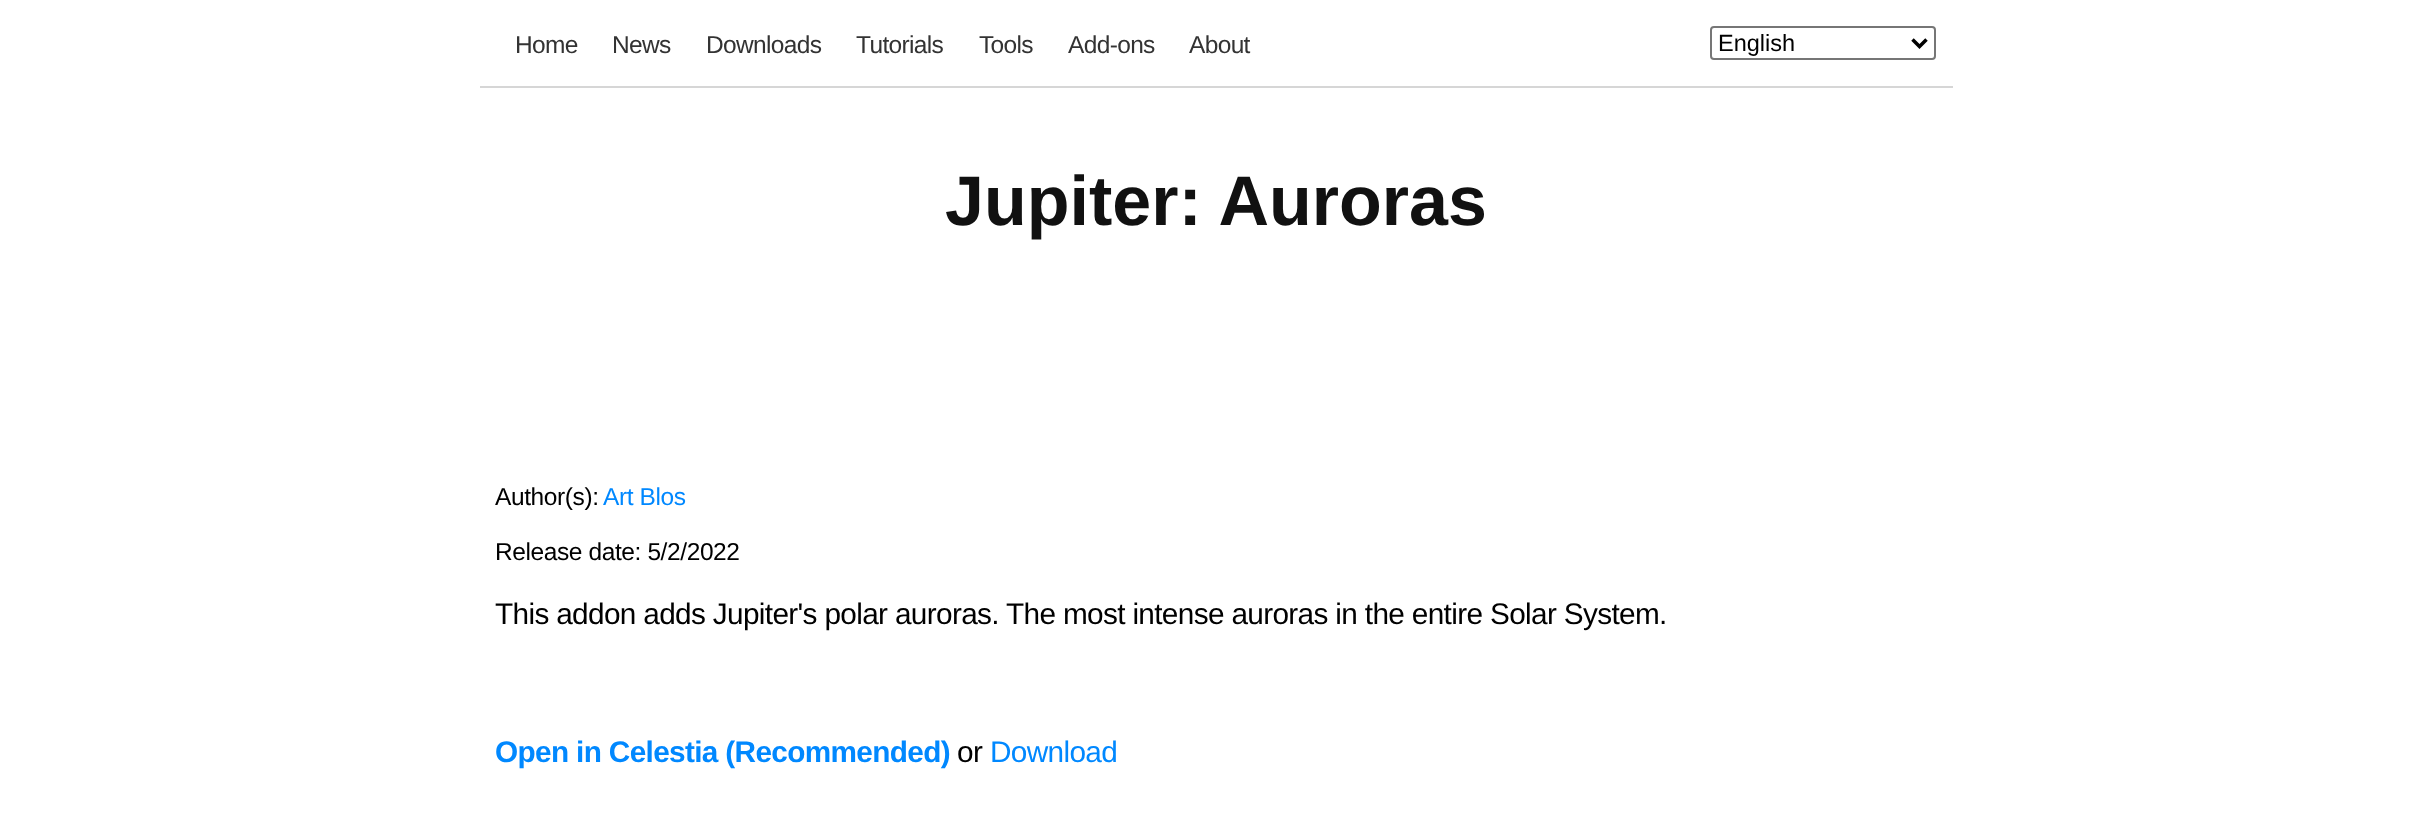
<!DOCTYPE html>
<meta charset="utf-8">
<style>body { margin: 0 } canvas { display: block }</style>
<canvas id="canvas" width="2431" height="814"></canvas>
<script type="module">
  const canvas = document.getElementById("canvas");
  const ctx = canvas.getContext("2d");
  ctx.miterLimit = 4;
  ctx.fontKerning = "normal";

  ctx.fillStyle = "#ffffff";
  ctx.fillRect(0, 0, 2431, 814);
  ctx.letterSpacing = "-0.65px";
  ctx.font = "24.5px Liberation Sans";
  ctx.fillStyle = "#333333";
  ctx.fillText("Home", 515, 53);
  ctx.fillText("News", 612, 53);
  ctx.fillText("Downloads", 706, 53);
  ctx.fillText("Tutorials", 856, 53);
  ctx.fillText("Tools", 979, 53);
  ctx.fillText("Add-ons", 1068, 53);
  ctx.fillText("About", 1189, 53);
  ctx.beginPath();
  ctx.roundRect(1711, 27, 224, 32, 3);
  ctx.strokeStyle = "#767676";
  ctx.lineWidth = 2;
  ctx.stroke();
  ctx.beginPath();
  ctx.moveTo(1912.5, 39.5);
  ctx.lineTo(1919.5, 46.5);
  ctx.lineTo(1926.5, 39.5);
  ctx.strokeStyle = "#000000";
  ctx.lineWidth = 3.5;
  ctx.stroke();
  ctx.letterSpacing = "0px";
  ctx.font = "23.5px Liberation Sans";
  ctx.fillStyle = "#000000";
  ctx.fillText("English", 1718, 51);
  ctx.fillStyle = "#d6d6d6";
  ctx.fillRect(480, 86, 1473, 2);
  ctx.font = "bold 70px Liberation Sans";
  ctx.fillStyle = "#111111";
  ctx.fillText("Jupiter: Auroras", 945, 225);
  ctx.letterSpacing = "-0.4px";
  ctx.font = "24.5px Liberation Sans";
  ctx.fillStyle = "#000000";
  ctx.fillText("Author(s):", 495, 505);
  ctx.fillStyle = "#0088ff";
  ctx.fillText("Art Blos", 603, 505);
  ctx.fillStyle = "#000000";
  ctx.fillText("Release date: 5/2/2022", 495, 560);
  ctx.letterSpacing = "-0.65px";
  ctx.font = "29.75px Liberation Sans";
  ctx.fillText("This addon adds Jupiter's polar auroras. The most intense auroras in the entire Solar System.", 495, 624);
  ctx.font = "bold 29.75px Liberation Sans";
  ctx.fillStyle = "#0088ff";
  ctx.fillText("Open in Celestia (Recommended)", 495, 762);
  ctx.font = "29.75px Liberation Sans";
  ctx.fillStyle = "#000000";
  ctx.fillText("or", 957, 762);
  ctx.fillStyle = "#0088ff";
  ctx.fillText("Download", 990, 762);
</script>
